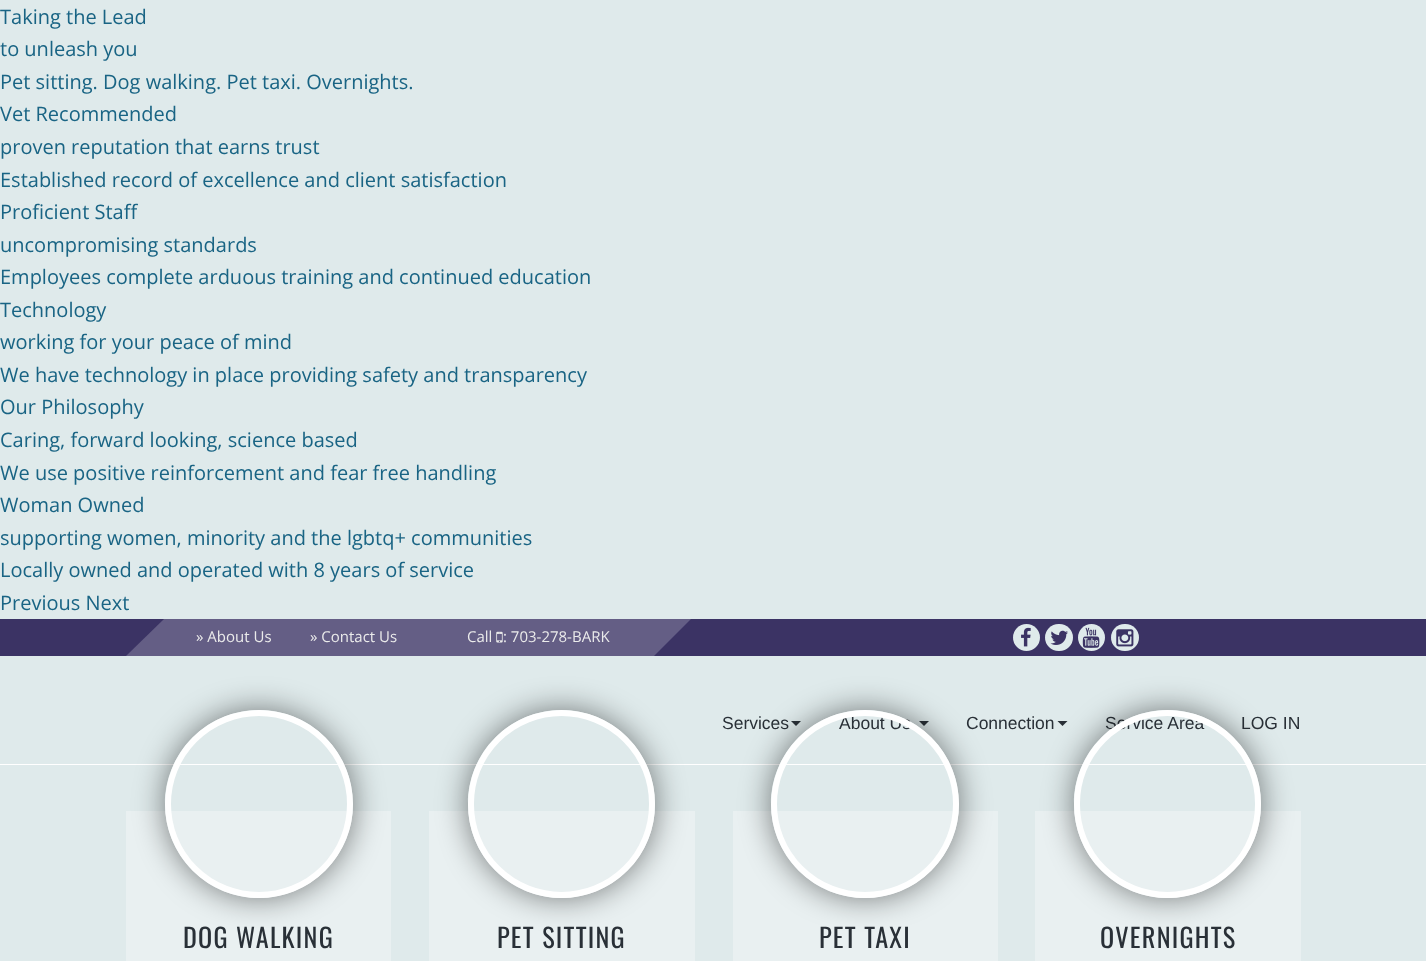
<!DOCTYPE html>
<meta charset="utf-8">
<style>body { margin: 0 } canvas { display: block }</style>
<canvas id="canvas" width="1426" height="961"></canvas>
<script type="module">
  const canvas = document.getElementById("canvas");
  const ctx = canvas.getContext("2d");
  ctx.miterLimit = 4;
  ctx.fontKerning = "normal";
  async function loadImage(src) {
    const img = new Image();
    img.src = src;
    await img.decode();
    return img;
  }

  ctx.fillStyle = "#dfeaeb";
  ctx.fillRect(0, 0, 1426, 961);
  ctx.font = "20px Open Sans";
  ctx.fillStyle = "#196484";
  ctx.fillText("Taking the Lead", 0, 24);
  ctx.fillText("to unleash you", 0, 56);
  ctx.fillText("Pet sitting. Dog walking. Pet taxi. Overnights.", 0, 89);
  ctx.fillText("Vet Recommended", 0, 121);
  ctx.fillText("proven reputation that earns trust", 0, 154);
  ctx.fillText("Established record of excellence and client satisfaction", 0, 187);
  ctx.fillText("Proficient Staff", 0, 219);
  ctx.fillText("uncompromising standards", 0, 252);
  ctx.fillText("Employees complete arduous training and continued education", 0, 284);
  ctx.fillText("Technology", 0, 317);
  ctx.fillText("working for your peace of mind", 0, 349);
  ctx.fillText("We have technology in place providing safety and transparency", 0, 382);
  ctx.fillText("Our Philosophy", 0, 414);
  ctx.fillText("Caring, forward looking, science based", 0, 447);
  ctx.fillText("We use positive reinforcement and fear free handling", 0, 480);
  ctx.fillText("Woman Owned", 0, 512);
  ctx.fillText("supporting women, minority and the lgbtq+ communities", 0, 545);
  ctx.fillText("Locally owned and operated with 8 years of service", 0, 577);
  ctx.fillText("Previous Next", 0, 610);
  ctx.fillStyle = "#3b3364";
  ctx.fillRect(0, 619, 1426, 37);
  ctx.fillStyle = "#645e85";
  ctx.beginPath();
  ctx.moveTo(164, 619);
  ctx.lineTo(164, 656);
  ctx.lineTo(126, 656);
  ctx.closePath();
  ctx.fill();
  ctx.fillRect(164, 619, 490, 37);
  ctx.font = "15px Open Sans";
  ctx.fillStyle = "#ebebeb";
  ctx.fillText("» About Us", 196, 642);
  ctx.fillText("» Contact Us", 310, 642);
  ctx.fillText("Call", 467, 642);
  ctx.drawImage(await loadImage("img1.png"), 496, 631, 7, 12);
  ctx.fillText(": 703-278-BARK", 503, 642);
  ctx.fillStyle = "#645e85";
  ctx.beginPath();
  ctx.moveTo(654, 619);
  ctx.lineTo(691, 619);
  ctx.lineTo(654, 656);
  ctx.closePath();
  ctx.fill();
  ctx.fillStyle = "#dfeaeb";
  ctx.beginPath();
  ctx.arc(1026.5, 637.5, 13.5, 0, Math.PI * 2);
  ctx.fill();
  ctx.drawImage(await loadImage("img2.png"), 1021, 627, 10, 20);
  ctx.beginPath();
  ctx.roundRect(1045, 624, 28, 27, 13.5);
  ctx.fill();
  ctx.drawImage(await loadImage("img3.png"), 1050, 630, 18, 15);
  ctx.beginPath();
  ctx.arc(1091.5, 637.5, 13.5, 0, Math.PI * 2);
  ctx.fill();
  ctx.drawImage(await loadImage("img4.png"), 1082, 627, 18, 21);
  ctx.beginPath();
  ctx.roundRect(1111, 624, 28, 27, 13.5);
  ctx.fill();
  ctx.drawImage(await loadImage("img5.png"), 1116, 629, 18, 18);
  ctx.font = "17.5px Liberation Sans";
  ctx.fillStyle = "#293037";
  ctx.fillText("Services", 722, 729);
  ctx.beginPath();
  ctx.moveTo(791, 721);
  ctx.lineTo(801, 721);
  ctx.lineTo(796, 726);
  ctx.closePath();
  ctx.fill();
  ctx.fillText("About Us", 839, 729);
  ctx.beginPath();
  ctx.moveTo(919, 721);
  ctx.lineTo(929, 721);
  ctx.lineTo(924, 726);
  ctx.closePath();
  ctx.fill();
  ctx.fillText("Connection", 966, 729);
  ctx.beginPath();
  ctx.moveTo(1057.5, 721);
  ctx.lineTo(1067.5, 721);
  ctx.lineTo(1062.5, 726);
  ctx.closePath();
  ctx.fill();
  ctx.fillText("Service Area", 1105, 729);
  ctx.fillText("LOG IN", 1241, 729);
  ctx.fillStyle = "#ffffff";
  ctx.fillRect(0, 764, 1426, 1);
  ctx.fillStyle = "#e9f0f1";
  ctx.fillRect(126, 811, 265, 150);
  ctx.save();
  ctx.beginPath();
  ctx.moveTo(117, 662);
  ctx.lineTo(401, 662);
  ctx.lineTo(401, 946);
  ctx.lineTo(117, 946);
  ctx.closePath();
  ctx.moveTo(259, 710);
  ctx.bezierCurveTo(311, 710, 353, 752, 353, 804);
  ctx.bezierCurveTo(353, 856, 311, 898, 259, 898);
  ctx.bezierCurveTo(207, 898, 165, 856, 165, 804);
  ctx.bezierCurveTo(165, 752, 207, 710, 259, 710);
  ctx.closePath();
  ctx.clip("evenodd");
  ctx.fillStyle = "rgba(0, 0, 0, 0.5)";
  ctx.filter = "blur(15.5px)";
  ctx.beginPath();
  ctx.roundRect(165, 710, 188, 188, 94);
  ctx.fill();
  ctx.filter = "none";
  ctx.restore();
  ctx.beginPath();
  ctx.arc(259, 804, 91, 0, Math.PI * 2);
  ctx.strokeStyle = "#ffffff";
  ctx.lineWidth = 6;
  ctx.stroke();
  ctx.letterSpacing = "1.25px";
  ctx.font = "26.25px Oswald";
  ctx.fillStyle = "#293037";
  ctx.fillText("DOG WALKING", 183, 948);
  ctx.fillStyle = "#e9f0f1";
  ctx.fillRect(429, 811, 266, 150);
  ctx.save();
  ctx.beginPath();
  ctx.moveTo(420, 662);
  ctx.lineTo(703, 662);
  ctx.lineTo(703, 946);
  ctx.lineTo(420, 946);
  ctx.closePath();
  ctx.moveTo(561.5, 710);
  ctx.bezierCurveTo(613, 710, 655, 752, 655, 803.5);
  ctx.lineTo(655, 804.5);
  ctx.bezierCurveTo(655, 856, 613, 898, 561.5, 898);
  ctx.bezierCurveTo(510, 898, 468, 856, 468, 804.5);
  ctx.lineTo(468, 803.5);
  ctx.bezierCurveTo(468, 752, 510, 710, 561.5, 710);
  ctx.closePath();
  ctx.clip("evenodd");
  ctx.fillStyle = "rgba(0, 0, 0, 0.5)";
  ctx.filter = "blur(15.5px)";
  ctx.beginPath();
  ctx.roundRect(468, 710, 187, 188, 93.5);
  ctx.fill();
  ctx.filter = "none";
  ctx.restore();
  ctx.beginPath();
  ctx.roundRect(471, 713, 181, 182, 90.5);
  ctx.stroke();
  ctx.fillStyle = "#293037";
  ctx.fillText("PET SITTING", 497, 948);
  ctx.fillStyle = "#e9f0f1";
  ctx.fillRect(733, 811, 265, 150);
  ctx.save();
  ctx.beginPath();
  ctx.moveTo(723, 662);
  ctx.lineTo(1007, 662);
  ctx.lineTo(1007, 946);
  ctx.lineTo(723, 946);
  ctx.closePath();
  ctx.moveTo(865, 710);
  ctx.bezierCurveTo(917, 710, 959, 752, 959, 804);
  ctx.bezierCurveTo(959, 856, 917, 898, 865, 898);
  ctx.bezierCurveTo(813, 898, 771, 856, 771, 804);
  ctx.bezierCurveTo(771, 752, 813, 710, 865, 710);
  ctx.closePath();
  ctx.clip("evenodd");
  ctx.fillStyle = "rgba(0, 0, 0, 0.5)";
  ctx.filter = "blur(15.5px)";
  ctx.beginPath();
  ctx.roundRect(771, 710, 188, 188, 94);
  ctx.fill();
  ctx.filter = "none";
  ctx.restore();
  ctx.beginPath();
  ctx.arc(865, 804, 91, 0, Math.PI * 2);
  ctx.stroke();
  ctx.fillStyle = "#293037";
  ctx.fillText("PET TAXI", 819, 948);
  ctx.fillStyle = "#e9f0f1";
  ctx.fillRect(1035, 811, 266, 150);
  ctx.save();
  ctx.beginPath();
  ctx.moveTo(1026, 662);
  ctx.lineTo(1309, 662);
  ctx.lineTo(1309, 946);
  ctx.lineTo(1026, 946);
  ctx.closePath();
  ctx.moveTo(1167.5, 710);
  ctx.bezierCurveTo(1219, 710, 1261, 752, 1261, 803.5);
  ctx.lineTo(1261, 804.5);
  ctx.bezierCurveTo(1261, 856, 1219, 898, 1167.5, 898);
  ctx.bezierCurveTo(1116, 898, 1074, 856, 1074, 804.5);
  ctx.lineTo(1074, 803.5);
  ctx.bezierCurveTo(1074, 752, 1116, 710, 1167.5, 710);
  ctx.closePath();
  ctx.clip("evenodd");
  ctx.fillStyle = "rgba(0, 0, 0, 0.5)";
  ctx.filter = "blur(15.5px)";
  ctx.beginPath();
  ctx.roundRect(1074, 710, 187, 188, 93.5);
  ctx.fill();
  ctx.filter = "none";
  ctx.restore();
  ctx.beginPath();
  ctx.roundRect(1077, 713, 181, 182, 90.5);
  ctx.stroke();
  ctx.fillStyle = "#293037";
  ctx.fillText("OVERNIGHTS", 1100, 948);
</script>
